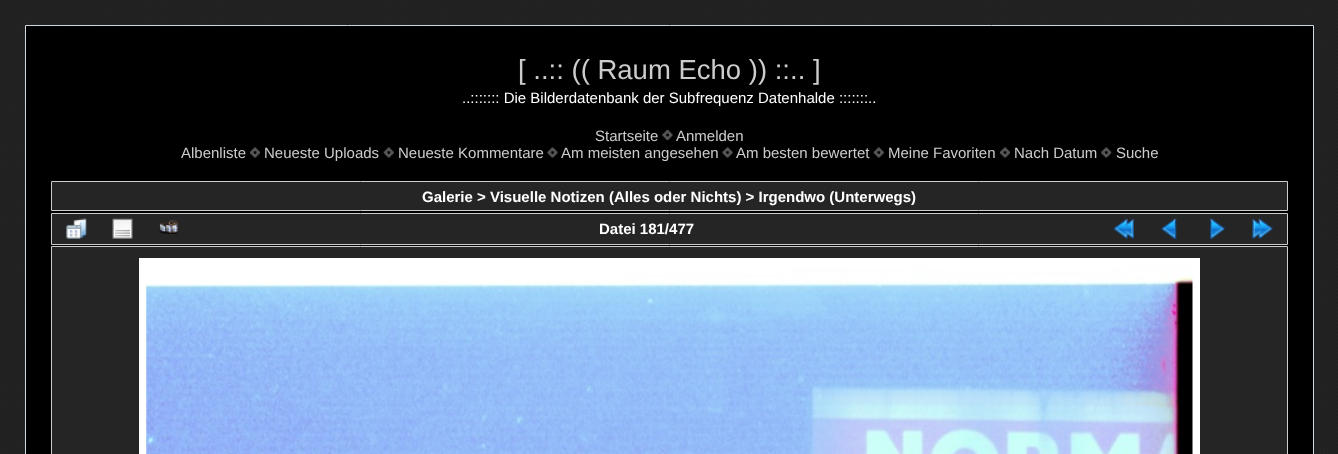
<!DOCTYPE html>
<meta charset="utf-8">
<style>body { margin: 0 } canvas { display: block }</style>
<canvas id="canvas" width="1338" height="454"></canvas>
<script type="module">
  const canvas = document.getElementById("canvas");
  const ctx = canvas.getContext("2d");
  ctx.miterLimit = 4;
  ctx.fontKerning = "normal";
  async function loadImage(src) {
    const img = new Image();
    img.src = src;
    await img.decode();
    return img;
  }

  ctx.fillStyle = "#ffffff";
  ctx.fillRect(0, 0, 1338, 454);
  ctx.drawImage(await loadImage("img1.png"), 0, 0, 1338, 454);
  ctx.fillStyle = "#000000";
  ctx.beginPath();
  ctx.rect(25.5, 25.5, 1288, 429);
  ctx.fill();
  ctx.strokeStyle = "#ccd7e0";
  ctx.stroke();
  ctx.font = "27.5px Liberation Sans";
  ctx.fillStyle = "#cccccc";
  ctx.fillText("[ ..:: (( Raum Echo )) ::.. ]", 518, 79);
  ctx.font = "15px Liberation Sans";
  ctx.fillStyle = "#ffffff";
  ctx.fillText("..::::::: Die Bilderdatenbank der Subfrequenz Datenhalde :::::::..", 462, 103);
  ctx.fillStyle = "#cccccc";
  ctx.fillText("Startseite", 595, 141);
  ctx.drawImage(await loadImage("img2.png"), 662, 130, 11, 10);
  ctx.fillText("Anmelden", 676, 141);
  ctx.fillText("Albenliste", 181, 158);
  ctx.drawImage(await loadImage("img3.png"), 250, 147, 10, 11);
  ctx.fillText("Neueste Uploads", 264, 158);
  ctx.drawImage(await loadImage("img4.png"), 383, 147, 11, 11);
  ctx.fillText("Neueste Kommentare", 398, 158);
  ctx.drawImage(await loadImage("img5.png"), 547, 147, 11, 11);
  ctx.fillText("Am meisten angesehen", 561, 158);
  ctx.drawImage(await loadImage("img5.png"), 722, 147, 11, 11);
  ctx.fillText("Am besten bewertet", 736, 158);
  ctx.drawImage(await loadImage("img4.png"), 873, 147, 11, 11);
  ctx.fillText("Meine Favoriten", 888, 158);
  ctx.drawImage(await loadImage("img6.png"), 1000, 147, 10, 11);
  ctx.fillText("Nach Datum", 1014, 158);
  ctx.drawImage(await loadImage("img7.png"), 1101, 147, 11, 11);
  ctx.fillText("Suche", 1116, 158);
  ctx.fillStyle = "#252525";
  ctx.beginPath();
  ctx.rect(51.5, 181.5, 1236, 29);
  ctx.fill();
  ctx.strokeStyle = "#cccccc";
  ctx.stroke();
  ctx.font = "bold 15px Liberation Sans";
  ctx.fillStyle = "#ffffff";
  ctx.fillText("Galerie > Visuelle Notizen (Alles oder Nichts) > Irgendwo (Unterwegs)", 422, 202);
  ctx.fillStyle = "#252525";
  ctx.beginPath();
  ctx.rect(51.5, 213.5, 1236, 31);
  ctx.fill();
  ctx.stroke();
  ctx.drawImage(await loadImage("img8.png"), 66, 218, 21, 21);
  ctx.drawImage(await loadImage("img9.png"), 112, 218, 21, 21);
  ctx.drawImage(await loadImage("img10.png"), 159, 220, 19, 14);
  ctx.fillStyle = "#ffffff";
  ctx.fillText("Datei 181/477", 599, 234);
  ctx.drawImage(await loadImage("img11.png"), 1113, 218, 21, 21);
  ctx.drawImage(await loadImage("img12.png"), 1161, 218, 16, 21);
  ctx.drawImage(await loadImage("img13.png"), 1209, 218, 17, 21);
  ctx.drawImage(await loadImage("img14.png"), 1252, 218, 21, 21);
  ctx.fillStyle = "#252525";
  ctx.beginPath();
  ctx.rect(51.5, 246.5, 1236, 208);
  ctx.fill();
  ctx.stroke();
  ctx.strokeStyle = "#ffffff";
  ctx.lineWidth = 8;
  ctx.strokeRect(143, 262, 1053, 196);
  ctx.drawImage(await loadImage("img15.png"), 146, 265, 1047, 189);
</script>
